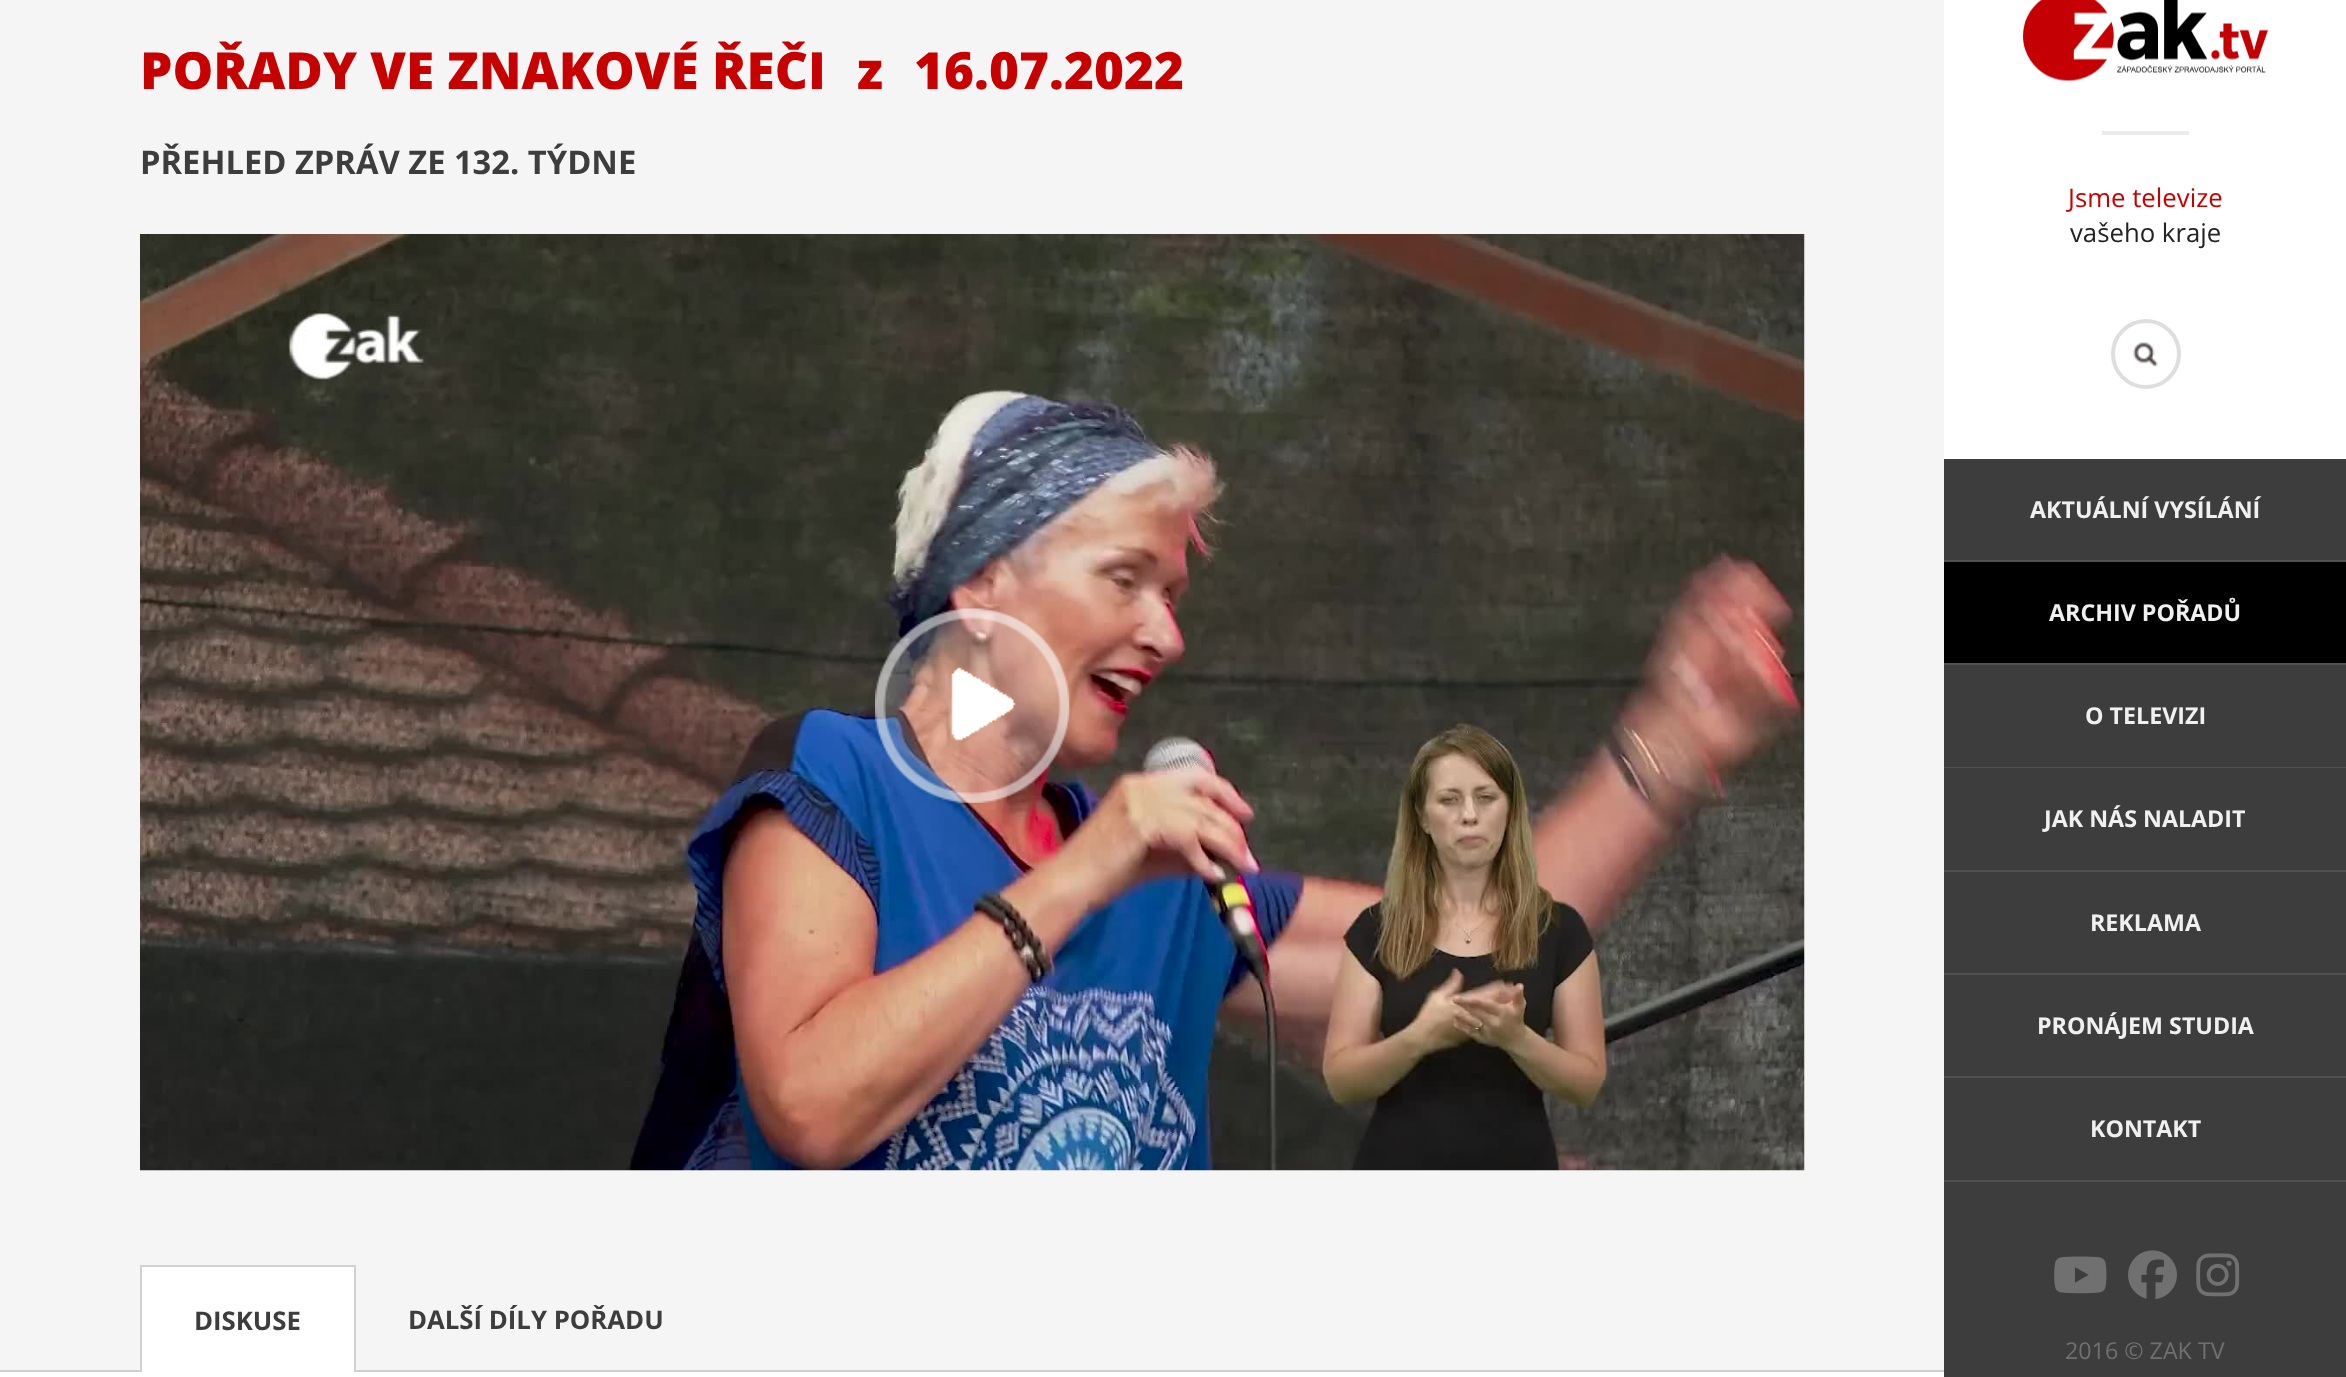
<!DOCTYPE html>
<meta charset="utf-8">
<style>body { margin: 0 } canvas { display: block }</style>
<canvas id="canvas" width="2346" height="1377"></canvas>
<script type="module">
  const canvas = document.getElementById("canvas");
  const ctx = canvas.getContext("2d");
  ctx.miterLimit = 4;
  ctx.fontKerning = "normal";
  async function loadImage(src) {
    const img = new Image();
    img.src = src;
    await img.decode();
    return img;
  }

  ctx.fillStyle = "#3d3d3d";
  ctx.fillRect(0, 0, 2346, 1377);
  ctx.fillStyle = "#000000";
  ctx.fillRect(1944, 562, 402, 101);
  ctx.beginPath();
  ctx.moveTo(1949.5, 597);
  ctx.lineTo(1949.5, 625);
  ctx.lineTo(1928.5, 611);
  ctx.closePath();
  ctx.fill();
  ctx.fillStyle = "#f5f5f5";
  ctx.fillRect(0, 0, 1944, 1370);
  ctx.font = "800 51.3px Open Sans";
  ctx.fillStyle = "#c70000";
  ctx.fillText("POŘADY VE ZNAKOVÉ ŘEČI", 140, 89);
  ctx.fillText("z", 857, 89);
  ctx.fillText("16.07.2022", 914, 89);
  ctx.font = "bold 32.7px Open Sans";
  ctx.fillStyle = "#3d3d3d";
  ctx.fillText("PŘEHLED ZPRÁV ZE 132. TÝDNE", 140, 174);
  ctx.drawImage(await loadImage("img1.png"), 140, 234, 1665, 937);
  ctx.drawImage(await loadImage("img2.png"), 875, 608, 195, 195);
  ctx.fillStyle = "#d1d1d1";
  ctx.fillRect(0, 1370, 1944, 2);
  ctx.fillStyle = "#ffffff";
  ctx.fillRect(142, 1267, 212, 105);
  ctx.fillStyle = "#d1d1d1";
  ctx.fillRect(140, 1265, 215, 2);
  ctx.fillRect(354, 1265, 2, 107);
  ctx.fillRect(140, 1265, 2, 107);
  ctx.font = "bold 25.75px Open Sans";
  ctx.fillStyle = "#3d3d3d";
  ctx.fillText("DISKUSE", 194, 1330);
  ctx.fillText("DALŠÍ DÍLY POŘADU", 408, 1329);
  ctx.fillStyle = "#ffffff";
  ctx.fillRect(0, 1372, 1944, 5);
  ctx.fillRect(1944, 0, 402, 459);
  ctx.drawImage(await loadImage("img3.png"), 2023, 0, 245, 81);
  ctx.fillStyle = "#ebebeb";
  ctx.fillRect(2102, 131, 87, 4);
  ctx.font = "25.75px Open Sans";
  ctx.fillStyle = "#c70000";
  ctx.fillText("Jsme televize", 2068, 207);
  ctx.fillStyle = "#232323";
  ctx.fillText("vašeho kraje", 2070, 242);
  ctx.drawImage(await loadImage("img4.png"), 2133, 342, 25, 25);
  ctx.beginPath();
  ctx.arc(2146, 354, 33, 0, Math.PI * 2);
  ctx.strokeStyle = "#dedede";
  ctx.lineWidth = 4;
  ctx.stroke();
  ctx.fillStyle = "#515151";
  ctx.fillRect(1944, 560, 402, 2);
  ctx.font = "bold 23.25px Open Sans";
  ctx.fillStyle = "#f0f0f0";
  ctx.fillText("AKTUÁLNÍ VYSÍLÁNÍ", 2030, 518);
  ctx.fillStyle = "#515151";
  ctx.fillRect(1944, 663, 402, 2);
  ctx.fillStyle = "#f0f0f0";
  ctx.fillText("ARCHIV POŘADŮ", 2049, 621);
  ctx.fillStyle = "#515151";
  ctx.fillRect(1944, 767, 402, 1);
  ctx.fillStyle = "#f0f0f0";
  ctx.fillText("O TELEVIZI", 2085, 724);
  ctx.fillStyle = "#515151";
  ctx.fillRect(1944, 870, 402, 2);
  ctx.fillStyle = "#f0f0f0";
  ctx.fillText("JAK NÁS NALADIT", 2044, 827);
  ctx.fillStyle = "#515151";
  ctx.fillRect(1944, 973, 402, 2);
  ctx.fillStyle = "#f0f0f0";
  ctx.fillText("REKLAMA", 2090, 931);
  ctx.fillStyle = "#515151";
  ctx.fillRect(1944, 1076, 402, 2);
  ctx.fillStyle = "#f0f0f0";
  ctx.fillText("PRONÁJEM STUDIA", 2037, 1034);
  ctx.fillStyle = "#515151";
  ctx.fillRect(1944, 1180, 402, 2);
  ctx.fillStyle = "#f0f0f0";
  ctx.fillText("KONTAKT", 2090, 1137);
  ctx.drawImage(await loadImage("img5.png"), 2054, 1256, 53, 38);
  ctx.drawImage(await loadImage("img6.png"), 2128, 1250, 49, 49);
  ctx.drawImage(await loadImage("img7.png"), 2196, 1253, 44, 44);
  ctx.font = "23.25px Open Sans";
  ctx.fillStyle = "#707070";
  ctx.fillText("2016 © ZAK TV", 2065, 1359);
</script>
